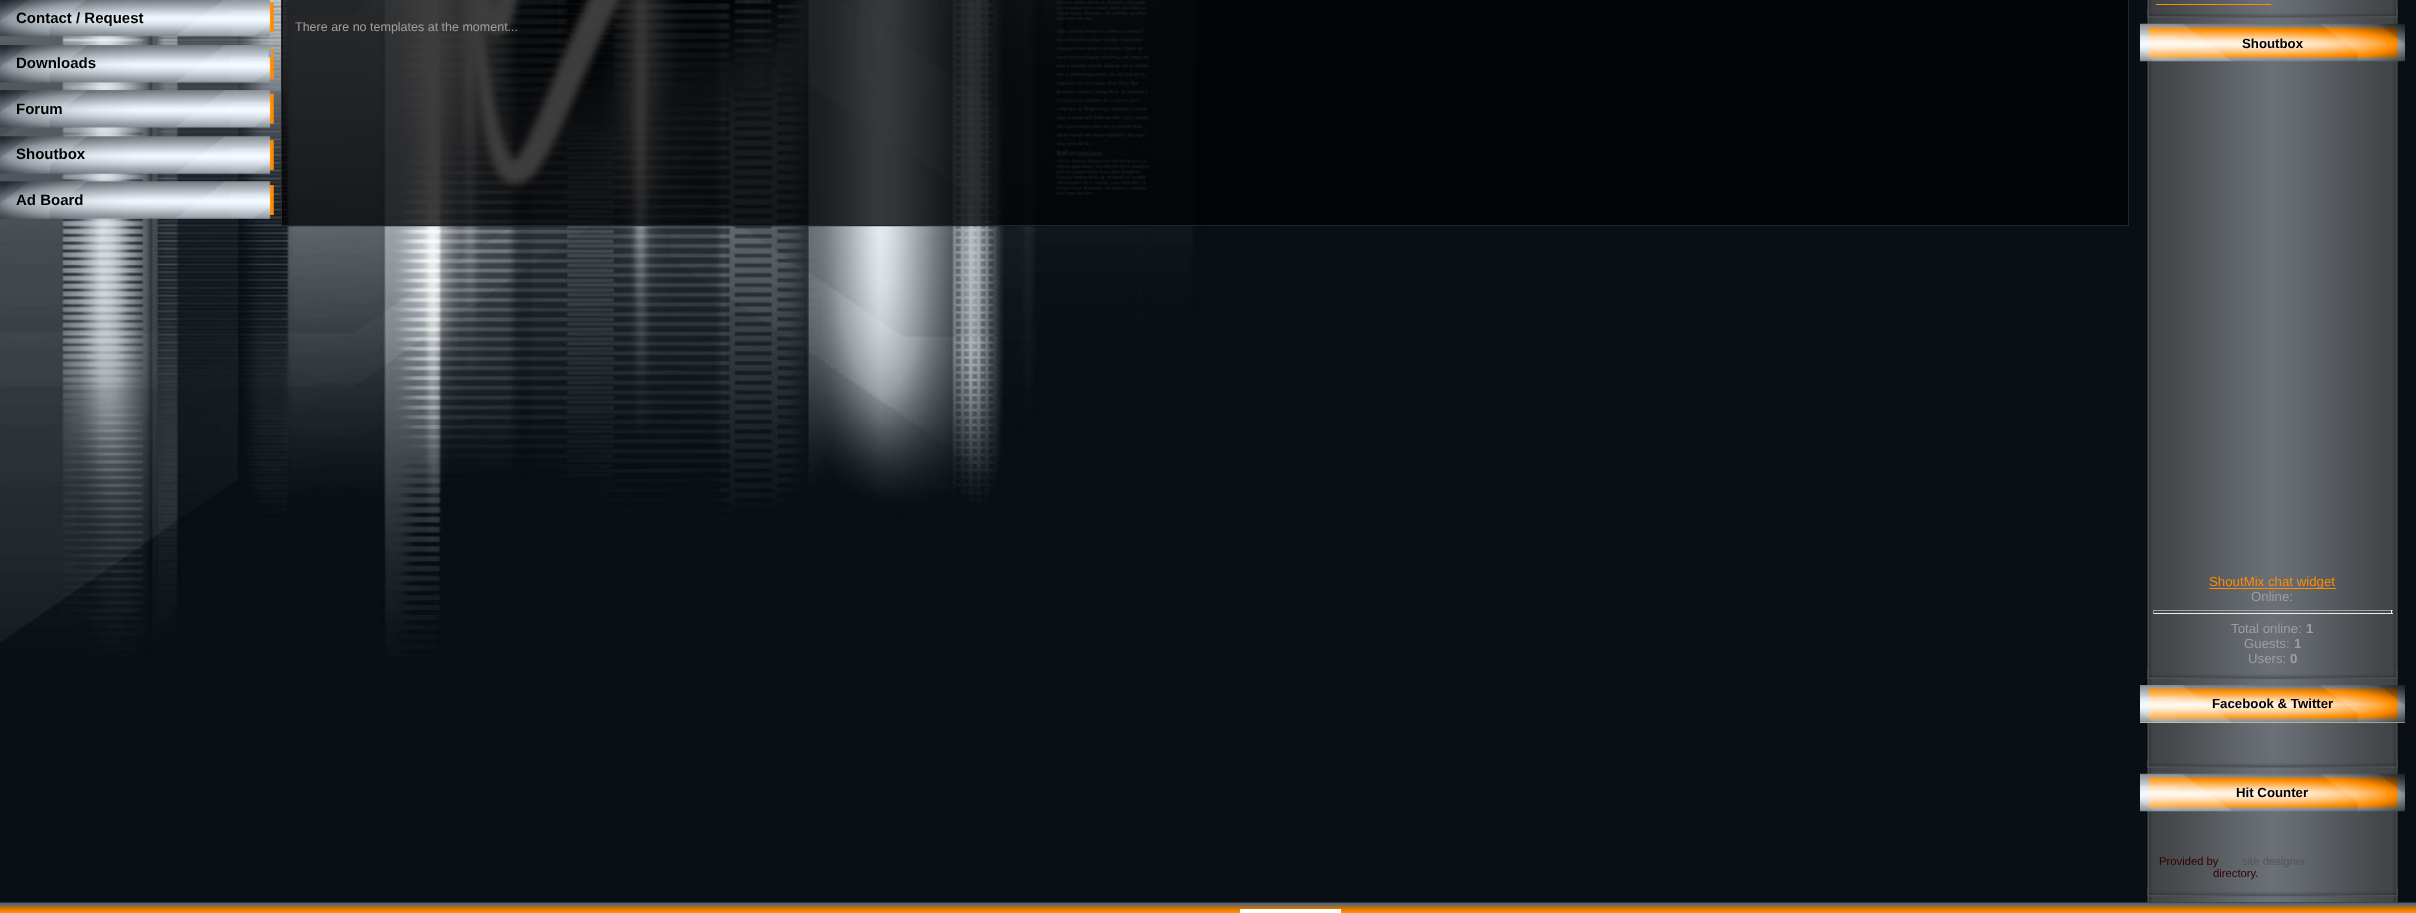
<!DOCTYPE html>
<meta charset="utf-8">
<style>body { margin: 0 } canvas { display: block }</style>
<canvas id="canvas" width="2416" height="913"></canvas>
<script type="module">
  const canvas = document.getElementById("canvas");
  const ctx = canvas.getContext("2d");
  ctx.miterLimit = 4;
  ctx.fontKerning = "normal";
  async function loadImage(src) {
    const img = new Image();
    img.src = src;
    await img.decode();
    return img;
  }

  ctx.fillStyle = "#090f15";
  ctx.fillRect(0, 0, 2416, 913);
  ctx.drawImage(await loadImage("img1.png"), 0, 0, 1250, 656);
  ctx.drawImage(await loadImage("img2.png"), 0, 0, 274, 37);
  ctx.font = "bold 15px Liberation Sans";
  ctx.fillStyle = "#000000";
  ctx.fillText("Contact / Request", 16, 23);
  ctx.drawImage(await loadImage("img3.png"), 0, 45, 274, 38);
  ctx.drawImage(await loadImage("img4.png"), 268, 48, 6, 10);
  ctx.fillText("Downloads", 16, 68);
  ctx.drawImage(await loadImage("img5.png"), 0, 90, 274, 38);
  ctx.fillText("Forum", 16, 114);
  ctx.drawImage(await loadImage("img6.png"), 0, 136, 274, 38);
  ctx.fillText("Shoutbox", 16, 159);
  ctx.drawImage(await loadImage("img7.png"), 0, 181, 274, 38);
  ctx.fillText("Ad Board", 16, 205);
  ctx.fillStyle = "#020405";
  ctx.fillRect(282, 0, 1846, 225);
  ctx.drawImage(await loadImage("img8.png"), 282, 0, 994, 227);
  ctx.strokeStyle = "#21272d";
  ctx.strokeRect(281.5, -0.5, 1847, 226);
  ctx.font = "12.5px Liberation Sans";
  ctx.fillStyle = "#9f9f9f";
  ctx.fillText("There are no templates at the moment...", 295, 31);
  ctx.drawImage(await loadImage("img9.png"), 2147, 0, 251, 903);
  ctx.drawImage(await loadImage("img10.png"), 2147, 8, 251, 10);
  ctx.fillStyle = "#ff8c00";
  ctx.fillRect(2156, 4, 115, 1);
  ctx.drawImage(await loadImage("img11.png"), 2140, 23, 265, 39);
  ctx.font = "bold 13.25px Liberation Sans";
  ctx.fillStyle = "#000000";
  ctx.fillText("Shoutbox", 2242, 48);
  ctx.drawImage(await loadImage("img12.png"), 2147, 670, 251, 9);
  ctx.fillStyle = "#ff8c00";
  ctx.fillRect(2209, 588, 127, 1);
  ctx.font = "13.25px Liberation Sans";
  ctx.fillText("ShoutMix chat widget", 2209, 586);
  ctx.fillStyle = "#9f9f9f";
  ctx.fillText("Online:", 2251, 601);
  ctx.fillRect(2153, 610, 240, 1);
  ctx.fillStyle = "#eeeeee";
  ctx.fillRect(2391, 610, 1, 4);
  ctx.fillRect(2153, 613, 240, 1);
  ctx.fillStyle = "#9f9f9f";
  ctx.fillRect(2153, 610, 1, 4);
  ctx.fillText("Total online:", 2231, 633);
  ctx.font = "bold 13.25px Liberation Sans";
  ctx.fillText("1", 2306, 633);
  ctx.font = "13.25px Liberation Sans";
  ctx.fillText("Guests:", 2244, 648);
  ctx.font = "bold 13.25px Liberation Sans";
  ctx.fillText("1", 2294, 648);
  ctx.font = "13.25px Liberation Sans";
  ctx.fillText("Users:", 2248, 663);
  ctx.font = "bold 13.25px Liberation Sans";
  ctx.fillText("0", 2290, 663);
  ctx.fillStyle = "#ffdcb0";
  ctx.fillRect(2140, 722, 265, 1);
  ctx.drawImage(await loadImage("img13.png"), 2140, 685, 265, 38);
  ctx.fillStyle = "#000000";
  ctx.fillText("Facebook & Twitter", 2212, 708);
  ctx.drawImage(await loadImage("img10.png"), 2147, 758, 251, 10);
  ctx.drawImage(await loadImage("img14.png"), 2140, 773, 265, 39);
  ctx.fillText("Hit Counter", 2236, 797);
  ctx.drawImage(await loadImage("img15.png"), 2147, 887, 251, 10);
  ctx.font = "11.25px Liberation Sans";
  ctx.fillStyle = "#330000";
  ctx.fillText("Provided by", 2159, 865);
  ctx.fillStyle = "#555555";
  ctx.fillText("site designer", 2242, 865);
  ctx.fillStyle = "#330000";
  ctx.fillText("directory.", 2213, 877);
  ctx.drawImage(await loadImage("img16.png"), 0, 902, 2416, 11);
  ctx.fillStyle = "#ffffff";
  ctx.fillRect(1240, 909, 101, 4);
</script>
